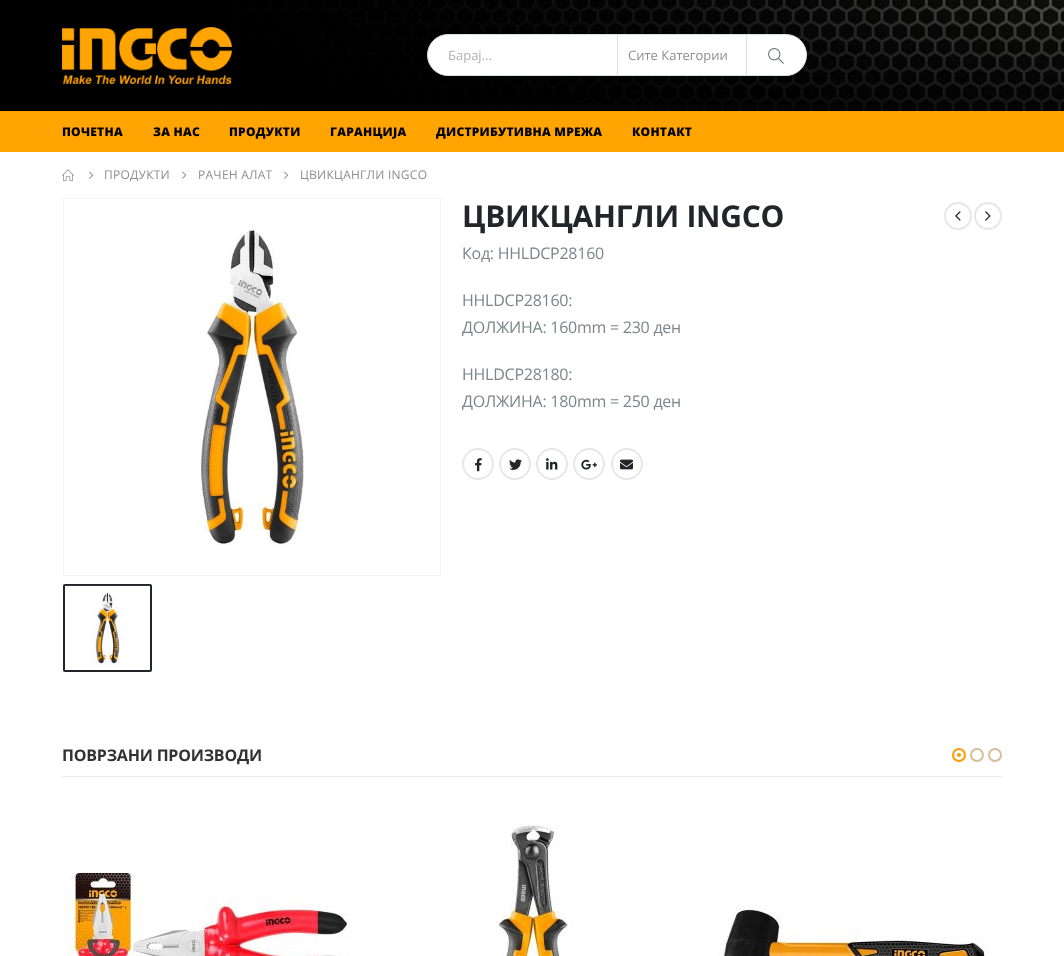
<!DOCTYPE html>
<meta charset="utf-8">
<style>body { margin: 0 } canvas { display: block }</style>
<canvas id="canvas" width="1064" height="956"></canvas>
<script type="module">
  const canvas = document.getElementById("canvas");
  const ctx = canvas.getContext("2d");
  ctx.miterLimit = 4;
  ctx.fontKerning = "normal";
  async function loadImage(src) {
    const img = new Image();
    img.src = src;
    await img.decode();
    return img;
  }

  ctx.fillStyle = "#ffffff";
  ctx.fillRect(0, 0, 1064, 956);
  ctx.drawImage(await loadImage("img1.png"), 0, 0, 1064, 111);
  ctx.drawImage(await loadImage("img2.png"), 62, 27, 170, 57);
  ctx.beginPath();
  ctx.roundRect(427.5, 34.5, 379, 41, 20.5);
  ctx.fill();
  ctx.strokeStyle = "#dbe0e2";
  ctx.stroke();
  ctx.fillStyle = "#dbe0e2";
  ctx.fillRect(617, 35, 1, 40);
  ctx.font = "13px Open Sans";
  ctx.fillStyle = "#afafaf";
  ctx.fillText("Барај…", 448, 60);
  ctx.fillStyle = "#dbe0e2";
  ctx.fillRect(746, 35, 1, 40);
  ctx.fillStyle = "#8d8d8d";
  ctx.fillText("Сите Категории", 628, 60);
  ctx.drawImage(await loadImage("img3.png"), 768, 48, 16, 16);
  ctx.fillStyle = "#ffa400";
  ctx.fillRect(0, 111, 1064, 41);
  ctx.letterSpacing = "0.25px";
  ctx.font = "800 12px Open Sans";
  ctx.fillStyle = "#000000";
  ctx.fillText("ПОЧЕТНА", 62, 136);
  ctx.fillText("ЗА НАС", 153, 136);
  ctx.fillText("ПРОДУКТИ", 229, 136);
  ctx.fillText("ГАРАНЦИЈА", 330, 136);
  ctx.fillText("ДИСТРИБУТИВНА МРЕЖА", 436, 136);
  ctx.fillText("КОНТАКТ", 632, 136);
  ctx.drawImage(await loadImage("img4.png"), 62, 169, 12, 13);
  ctx.drawImage(await loadImage("img5.png"), 89, 171, 5, 8);
  ctx.font = "12px Open Sans";
  ctx.fillStyle = "#8d8d8d";
  ctx.fillText("ПРОДУКТИ", 104, 179);
  ctx.drawImage(await loadImage("img5.png"), 182, 171, 5, 8);
  ctx.fillText("РАЧЕН АЛАТ", 198, 179);
  ctx.drawImage(await loadImage("img5.png"), 284, 171, 5, 8);
  ctx.fillText("ЦВИКЦАНГЛИ INGCO", 300, 179);
  ctx.strokeStyle = "#f4f4f4";
  ctx.strokeRect(63.5, 198.5, 377, 377);
  ctx.drawImage(await loadImage("img6.png"), 199, 229, 106, 316);
  ctx.beginPath();
  ctx.roundRect(64, 585, 87, 86, 1);
  ctx.strokeStyle = "#222529";
  ctx.lineWidth = 2;
  ctx.stroke();
  ctx.drawImage(await loadImage("img7.png"), 65, 585, 85, 82);
  ctx.letterSpacing = "-0.25px";
  ctx.font = "bold 30px Open Sans";
  ctx.fillStyle = "#222529";
  ctx.fillText("ЦВИКЦАНГЛИ INGCO", 462, 227);
  ctx.beginPath();
  ctx.arc(958, 216, 13, 0, Math.PI * 2);
  ctx.strokeStyle = "#e7e7e7";
  ctx.stroke();
  ctx.drawImage(await loadImage("img8.png"), 955, 211, 6, 10);
  ctx.beginPath();
  ctx.arc(988, 216, 13, 0, Math.PI * 2);
  ctx.stroke();
  ctx.drawImage(await loadImage("img9.png"), 985, 211, 6, 10);
  ctx.font = "16px Open Sans";
  ctx.fillStyle = "#7b858a";
  ctx.fillText("Код: HHLDCP28160", 462, 259);
  ctx.fillText("HHLDCP28160:", 462, 306);
  ctx.fillText("ДОЛЖИНА: 160mm = 230 ден", 462, 333);
  ctx.fillText("HHLDCP28180:", 462, 380);
  ctx.fillText("ДОЛЖИНА: 180mm = 250 ден", 462, 407);
  ctx.beginPath();
  ctx.arc(478, 464, 15, 0, Math.PI * 2);
  ctx.stroke();
  ctx.drawImage(await loadImage("img10.png"), 475, 458, 7, 14);
  ctx.beginPath();
  ctx.arc(515, 464, 15, 0, Math.PI * 2);
  ctx.stroke();
  ctx.drawImage(await loadImage("img11.png"), 509, 459, 13, 11);
  ctx.beginPath();
  ctx.arc(552, 464, 15, 0, Math.PI * 2);
  ctx.stroke();
  ctx.drawImage(await loadImage("img12.png"), 546, 458, 12, 12);
  ctx.beginPath();
  ctx.arc(589, 464, 15, 0, Math.PI * 2);
  ctx.stroke();
  ctx.drawImage(await loadImage("img13.png"), 581, 459, 16, 11);
  ctx.beginPath();
  ctx.arc(627, 464, 15, 0, Math.PI * 2);
  ctx.stroke();
  ctx.drawImage(await loadImage("img14.png"), 620, 459, 13, 11);
  ctx.beginPath();
  ctx.arc(959, 755, 6, 0, Math.PI * 2);
  ctx.strokeStyle = "#ff9900";
  ctx.stroke();
  ctx.fillStyle = "#ff9900";
  ctx.beginPath();
  ctx.arc(959, 755, 2, 0, Math.PI * 2);
  ctx.fill();
  ctx.beginPath();
  ctx.arc(977, 755, 6, 0, Math.PI * 2);
  ctx.strokeStyle = "#d6be99";
  ctx.stroke();
  ctx.beginPath();
  ctx.arc(995, 755, 6, 0, Math.PI * 2);
  ctx.stroke();
  ctx.drawImage(await loadImage("img15.png"), 62, 872, 288, 84);
  ctx.drawImage(await loadImage("img16.png"), 494, 825, 80, 131);
  ctx.drawImage(await loadImage("img17.png"), 719, 905, 271, 51);
  ctx.fillStyle = "#ebebeb";
  ctx.fillRect(62, 776, 940, 1);
  ctx.letterSpacing = "-0.2px";
  ctx.font = "bold 16px Open Sans";
  ctx.fillStyle = "#313131";
  ctx.fillText("ПОВРЗАНИ ПРОИЗВОДИ", 62, 761);
</script>
